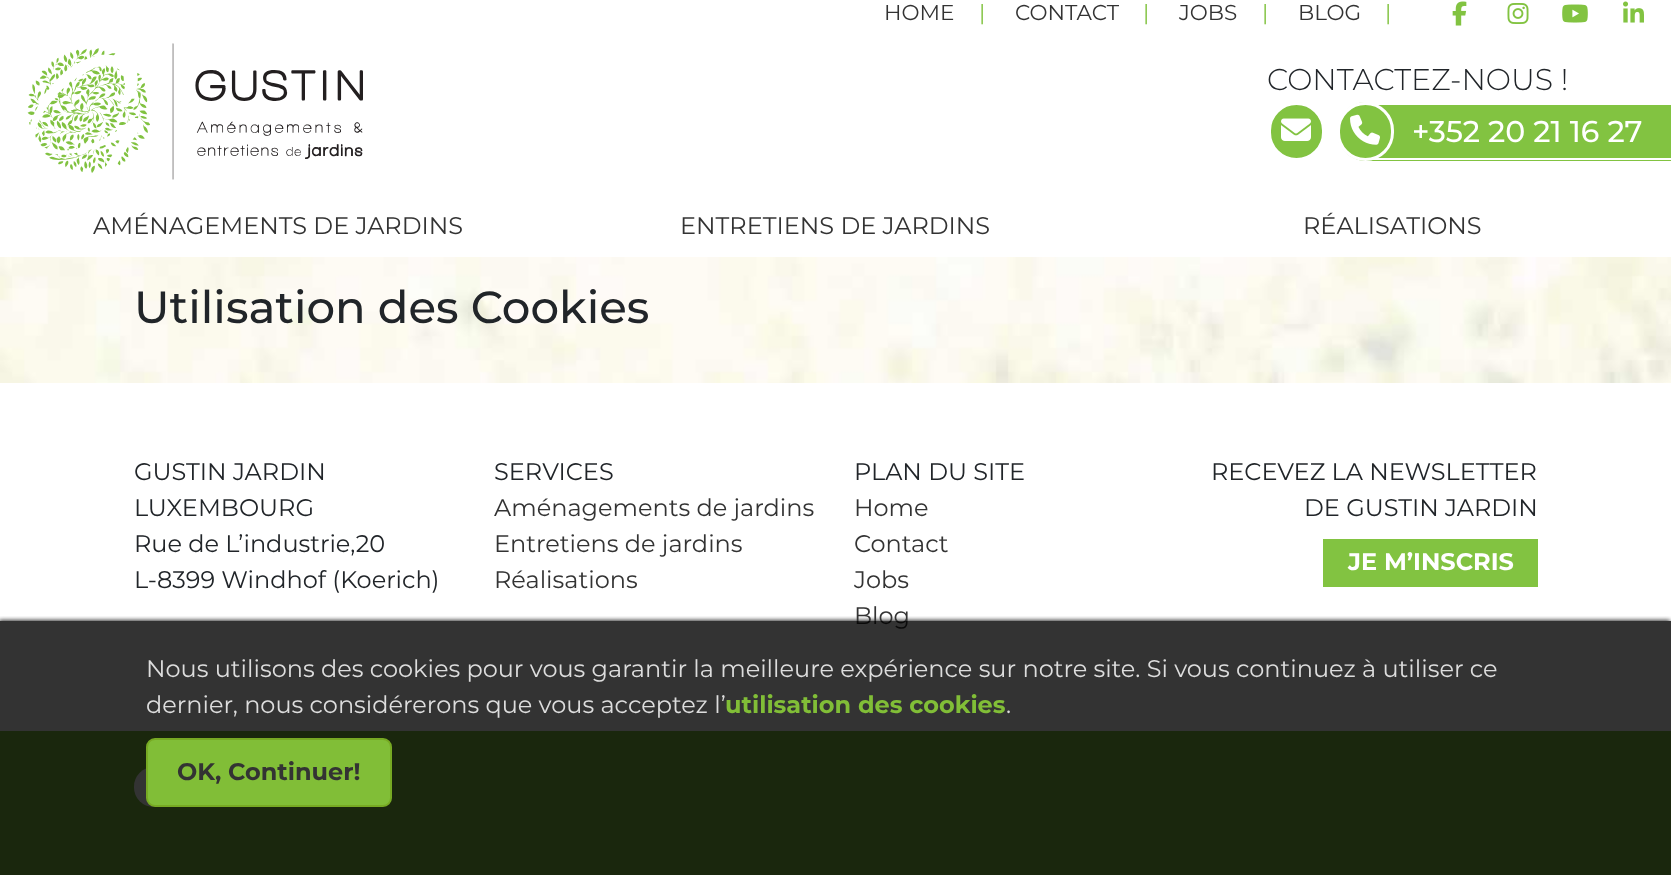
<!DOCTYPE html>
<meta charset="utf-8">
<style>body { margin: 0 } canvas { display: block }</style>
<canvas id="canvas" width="1671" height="875"></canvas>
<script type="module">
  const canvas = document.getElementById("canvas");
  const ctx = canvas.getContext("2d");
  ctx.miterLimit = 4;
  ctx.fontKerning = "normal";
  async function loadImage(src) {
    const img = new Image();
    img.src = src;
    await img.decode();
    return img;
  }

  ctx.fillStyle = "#ffffff";
  ctx.fillRect(0, 0, 1671, 875);
  ctx.drawImage(await loadImage("img1.png"), 0, 257, 1671, 126);
  ctx.font = "21.5px Montserrat";
  ctx.fillStyle = "#333333";
  ctx.fillText("HOME", 884, 20);
  ctx.fillStyle = "#82c341";
  ctx.fillText("|", 979, 20);
  ctx.fillStyle = "#333333";
  ctx.fillText("CONTACT", 1015, 20);
  ctx.fillStyle = "#82c341";
  ctx.fillText("|", 1143, 20);
  ctx.fillStyle = "#333333";
  ctx.fillText("JOBS", 1179, 20);
  ctx.fillStyle = "#82c341";
  ctx.fillText("|", 1262, 20);
  ctx.fillStyle = "#333333";
  ctx.fillText("BLOG", 1298, 20);
  ctx.fillStyle = "#82c341";
  ctx.fillText("|", 1385, 20);
  ctx.drawImage(await loadImage("img2.png"), 1452, 1, 15, 25);
  ctx.drawImage(await loadImage("img3.png"), 1507, 3, 22, 21);
  ctx.drawImage(await loadImage("img4.png"), 1562, 4, 26, 19);
  ctx.drawImage(await loadImage("img5.png"), 1623, 1, 21, 22);
  ctx.drawImage(await loadImage("img6.png"), 27, 43, 336, 137);
  ctx.font = "300 30px Montserrat";
  ctx.fillStyle = "#212529";
  ctx.fillText("CONTACTEZ-NOUS !", 1267, 90);
  ctx.fillStyle = "#82c341";
  ctx.beginPath();
  ctx.roundRect(1269.5, 103.5, 54, 56, 27);
  ctx.fill();
  ctx.strokeStyle = "#ffffff";
  ctx.lineWidth = 3;
  ctx.stroke();
  ctx.drawImage(await loadImage("img7.png"), 1281, 118, 30, 23);
  ctx.beginPath();
  ctx.roundRect(1337, 102, 334, 59, [29, 0, 0, 29]);
  ctx.fill();
  ctx.fillStyle = "#ffffff";
  ctx.beginPath();
  ctx.moveTo(1365, 102);
  ctx.lineTo(1671, 102);
  ctx.lineTo(1671, 160);
  ctx.lineTo(1365, 160);
  ctx.bezierCurveTo(1349, 160, 1336, 148, 1336, 132);
  ctx.lineTo(1336, 131);
  ctx.bezierCurveTo(1336, 115, 1349, 102, 1365, 102);
  ctx.closePath();
  ctx.moveTo(1365, 105);
  ctx.lineTo(1671, 105);
  ctx.lineTo(1671, 158);
  ctx.lineTo(1365, 158);
  ctx.bezierCurveTo(1351, 158, 1340, 146, 1340, 132);
  ctx.lineTo(1340, 131);
  ctx.bezierCurveTo(1340, 117, 1351, 105, 1365, 105);
  ctx.closePath();
  ctx.fill("evenodd");
  ctx.fillStyle = "#82c341";
  ctx.beginPath();
  ctx.roundRect(1338.5, 103.5, 54, 56, 27);
  ctx.fill();
  ctx.stroke();
  ctx.drawImage(await loadImage("img8.png"), 1350, 114, 30, 31);
  ctx.font = "500 30px Montserrat";
  ctx.fillStyle = "#ffffff";
  ctx.fillText("+352 20 21 16 27", 1412, 142);
  ctx.font = "24px Montserrat";
  ctx.fillStyle = "#333333";
  ctx.fillText("AMÉNAGEMENTS DE JARDINS", 93, 234);
  ctx.fillText("ENTRETIENS DE JARDINS", 680, 234);
  ctx.fillText("RÉALISATIONS", 1303, 234);
  ctx.font = "500 45px Montserrat";
  ctx.fillStyle = "#212529";
  ctx.fillText("Utilisation des Cookies", 134, 323);
  ctx.font = "24px Montserrat";
  ctx.fillText("GUSTIN JARDIN", 134, 480);
  ctx.fillText("LUXEMBOURG", 134, 516);
  ctx.fillText("Rue de L’industrie,20", 134, 552);
  ctx.fillText("L-8399 Windhof (Koerich)", 134, 588);
  ctx.fillText("SERVICES", 494, 480);
  ctx.fillStyle = "#333333";
  ctx.fillText("Aménagements de jardins", 494, 516);
  ctx.fillText("Entretiens de jardins", 494, 552);
  ctx.fillText("Réalisations", 494, 588);
  ctx.fillStyle = "#212529";
  ctx.fillText("PLAN DU SITE", 854, 480);
  ctx.fillStyle = "#333333";
  ctx.fillText("Home", 854, 516);
  ctx.fillText("Contact", 854, 552);
  ctx.fillText("Jobs", 854, 588);
  ctx.fillText("Blog", 854, 624);
  ctx.fillStyle = "#212529";
  ctx.fillText("RECEVEZ LA NEWSLETTER", 1211, 480);
  ctx.fillText("DE GUSTIN JARDIN", 1304, 516);
  ctx.fillStyle = "#82c341";
  ctx.fillRect(1323, 539, 215, 48);
  ctx.font = "bold 24px Montserrat";
  ctx.fillStyle = "#ffffff";
  ctx.fillText("JE M’INSCRIS", 1348, 570);
  ctx.fillStyle = "#82c341";
  ctx.fillRect(0, 731, 1671, 144);
  ctx.fillStyle = "#ffffff";
  ctx.beginPath();
  ctx.roundRect(134, 767, 39, 40, 19.5);
  ctx.fill();
  ctx.save();
  ctx.beginPath();
  ctx.rect(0, 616, 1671, 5);
  ctx.clip();
  ctx.fillStyle = "#333333";
  ctx.filter = "blur(2px)";
  ctx.beginPath();
  ctx.rect(-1, 620, 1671, 255);
  ctx.fill();
  ctx.filter = "none";
  ctx.restore();
  ctx.fillStyle = "rgba(0, 0, 0, 0.8)";
  ctx.fillRect(0, 621, 1671, 254);
  ctx.font = "24px Montserrat";
  ctx.fillStyle = "#dddddd";
  ctx.fillText("Nous utilisons des cookies pour vous garantir la meilleure expérience sur notre site. Si vous continuez à utiliser ce", 146, 677);
  ctx.fillText("dernier, nous considérerons que vous acceptez l’", 146, 713);
  ctx.font = "bold 24px Montserrat";
  ctx.fillStyle = "#81be37";
  ctx.fillText("utilisation des cookies", 725, 713);
  ctx.font = "24px Montserrat";
  ctx.fillStyle = "#dddddd";
  ctx.fillText(".", 1006, 713);
  ctx.fillStyle = "#81be37";
  ctx.beginPath();
  ctx.roundRect(147, 739, 244, 67, 8);
  ctx.fill();
  ctx.strokeStyle = "#77aa23";
  ctx.lineWidth = 2;
  ctx.stroke();
  ctx.font = "bold 24px Montserrat";
  ctx.fillStyle = "#333333";
  ctx.fillText("OK, Continuer!", 177, 780);
</script>
